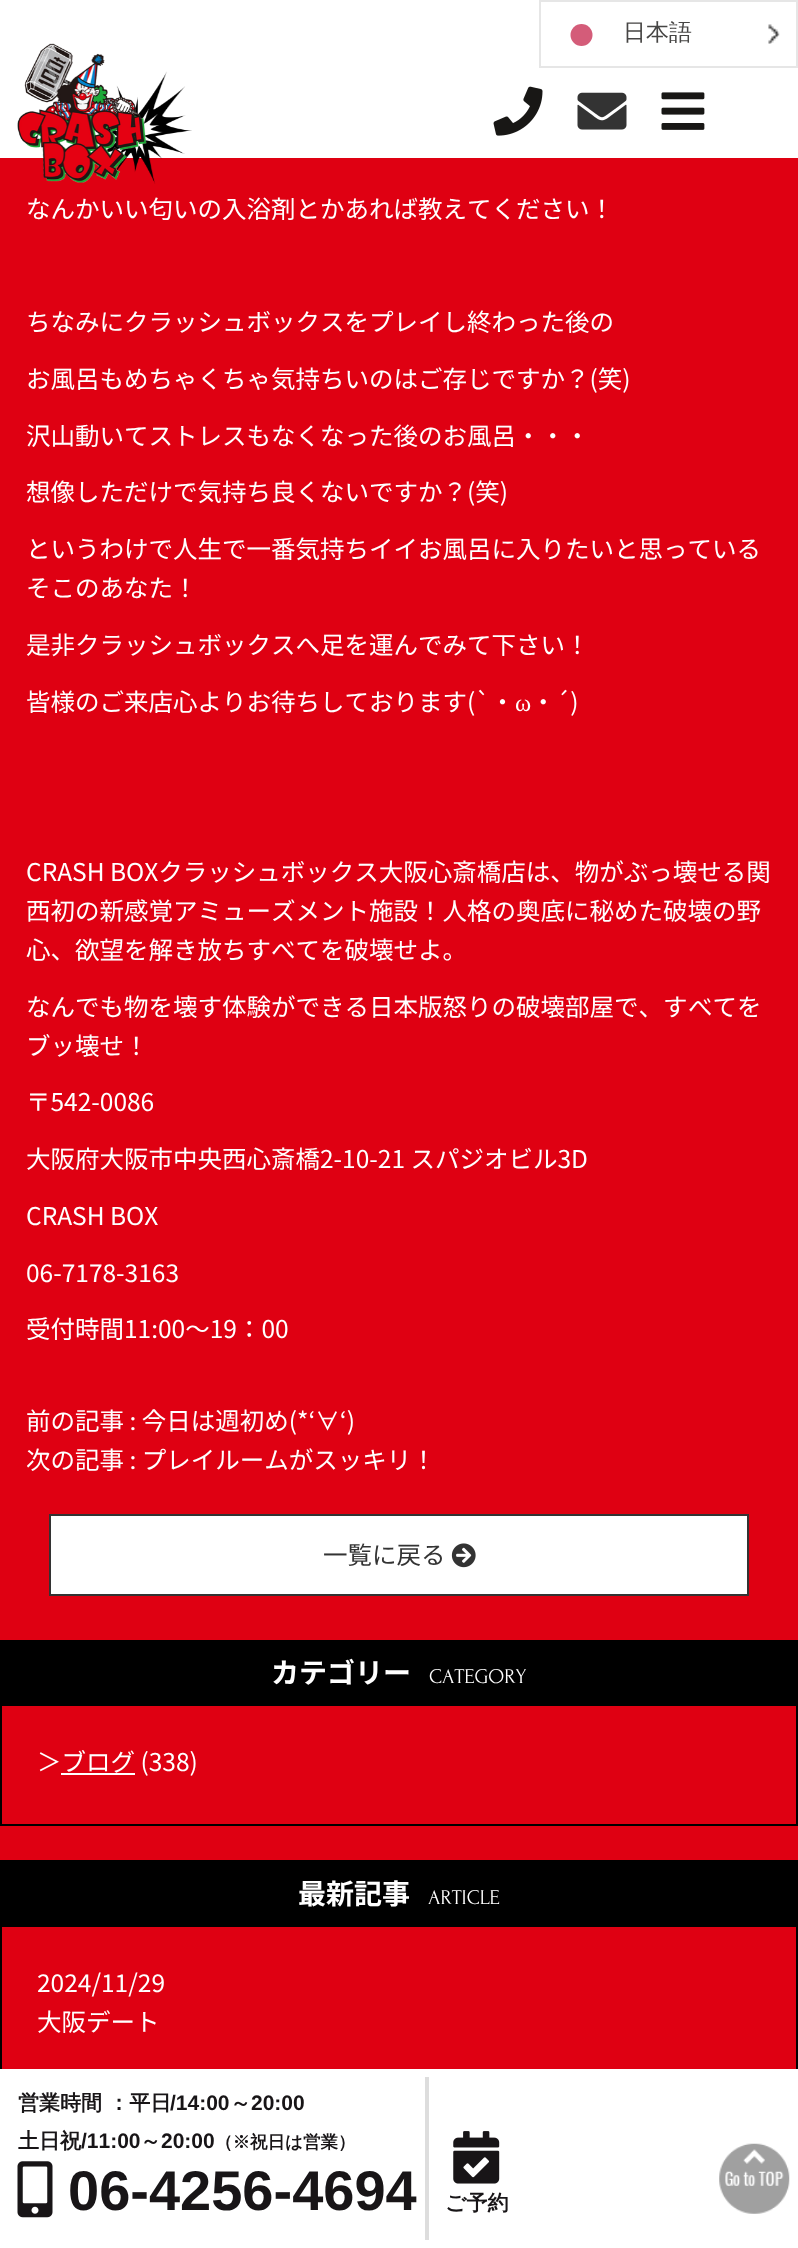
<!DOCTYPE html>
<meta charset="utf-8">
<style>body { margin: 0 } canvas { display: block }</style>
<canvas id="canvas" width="798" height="2248"></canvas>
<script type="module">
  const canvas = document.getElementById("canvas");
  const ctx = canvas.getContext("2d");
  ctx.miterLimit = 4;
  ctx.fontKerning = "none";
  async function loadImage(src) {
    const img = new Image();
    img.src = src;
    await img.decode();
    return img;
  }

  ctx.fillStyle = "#df0012";
  ctx.fillRect(0, 0, 798, 2248);
  ctx.fillStyle = "#ffffff";
  ctx.fillRect(0, 0, 798, 158);
  ctx.strokeStyle = "#e6e6e6";
  ctx.lineWidth = 2;
  ctx.strokeRect(540, 1, 257, 66);
  ctx.fillStyle = "#d45c79";
  ctx.beginPath();
  ctx.arc(581.5, 35, 11, 0, Math.PI * 2);
  ctx.fill();
  ctx.font = "500 23px WenQuanYi Zen Hei";
  ctx.fillStyle = "#464544";
  ctx.fillText("日本語", 623, 40);
  ctx.drawImage(await loadImage("img1.png"), 768, 24, 12, 20);
  ctx.drawImage(await loadImage("img2.png"), 17, 43, 175, 141);
  ctx.drawImage(await loadImage("img3.png"), 493, 86, 50, 50);
  ctx.drawImage(await loadImage("img4.png"), 577, 92, 50, 38);
  ctx.drawImage(await loadImage("img5.png"), 661, 92, 44, 38);
  ctx.font = "24.5px Noto Sans JP";
  ctx.fillStyle = "#ffffff";
  ctx.fillText("なんかいい匂いの入浴剤とかあれば教えてください！", 26, 218);
  ctx.fillText("ちなみにクラッシュボックスをプレイし終わった後の", 26, 331);
  ctx.fillText("お風呂もめちゃくちゃ気持ちいのはご存じですか？(笑)", 26, 388);
  ctx.fillText("沢山動いてストレスもなくなった後のお風呂・・・", 26, 445);
  ctx.fillText("想像しただけで気持ち良くないですか？(笑)", 26, 501);
  ctx.fillText("というわけで人生で一番気持ちイイお風呂に入りたいと思っている", 26, 558);
  ctx.fillText("そこのあなた！", 26, 597);
  ctx.fillText("是非クラッシュボックスへ足を運んでみて下さい！", 26, 654);
  ctx.fillText("皆様のご来店心よりお待ちしております(`・", 26, 711);
  ctx.font = "24.5px Liberation Serif";
  ctx.fillText("ω", 515, 711);
  ctx.font = "24.5px Noto Sans JP";
  ctx.fillText("・´)", 531, 711);
  ctx.fillText("CRASH BOXクラッシュボックス大阪心斎橋店は、物がぶっ壊せる関", 26, 881);
  ctx.fillText("西初の新感覚アミューズメント施設！人格の奥底に秘めた破壊の野", 26, 920);
  ctx.fillText("心、欲望を解き放ちすべてを破壊せよ。", 26, 959);
  ctx.fillText("なんでも物を壊す体験ができる日本版怒りの破壊部屋で、す", 26, 1016);
  ctx.fillText("べてを", 688, 1016);
  ctx.fillText("ブッ壊せ！", 26, 1055);
  ctx.fillText("〒542-0086", 26, 1111);
  ctx.fillText("大阪府大阪市中央西心斎橋2-10-21 スパジオビル3D", 26, 1168);
  ctx.fillText("CRASH BOX", 26, 1225);
  ctx.fillText("06-7178-3163", 26, 1282);
  ctx.fillText("受付時間11:00〜19：00", 26, 1338);
  ctx.fillText("前の記事 : 今日は週初め(*‘∀‘)", 26, 1430);
  ctx.fillText("次の記事 : プレイルームがスッキリ！", 26, 1469);
  ctx.beginPath();
  ctx.rect(50, 1515, 698, 80);
  ctx.fill();
  ctx.strokeStyle = "#333333";
  ctx.stroke();
  ctx.fillStyle = "#333333";
  ctx.fillText("一覧に戻る", 323, 1564);
  ctx.drawImage(await loadImage("img6.png"), 451, 1543, 25, 25);
  ctx.fillStyle = "#000000";
  ctx.fillRect(0, 1640, 798, 66);
  ctx.font = "bold 28px Noto Sans JP";
  ctx.fillStyle = "#ffffff";
  ctx.fillText("カテゴリー", 271, 1683);
  ctx.font = "21px Forum";
  ctx.fillText("CATEGORY", 429, 1683);
  ctx.fillStyle = "#000000";
  ctx.fillRect(796, 1706, 2, 119);
  ctx.fillRect(0, 1824, 798, 2);
  ctx.fillRect(0, 1706, 2, 119);
  ctx.font = "24.5px Noto Sans JP";
  ctx.fillStyle = "#ffffff";
  ctx.fillText("＞ブログ (338)", 37, 1771);
  ctx.fillRect(61, 1773, 74, 2);
  ctx.fillStyle = "#000000";
  ctx.fillRect(0, 1860, 798, 67);
  ctx.font = "bold 28px Noto Sans JP";
  ctx.fillStyle = "#ffffff";
  ctx.fillText("最新記事", 298, 1904);
  ctx.font = "21px Forum";
  ctx.fillText("ARTICLE", 428, 1904);
  ctx.fillStyle = "#000000";
  ctx.fillRect(796, 1927, 2, 142);
  ctx.fillRect(0, 1927, 2, 142);
  ctx.font = "24.5px Noto Sans JP";
  ctx.fillStyle = "#ffffff";
  ctx.fillText("2024/11/29", 37, 1992);
  ctx.fillText("大阪デート", 37, 2031);
  ctx.fillRect(0, 2069, 798, 179);
  ctx.fillStyle = "#dddddd";
  ctx.fillRect(425, 2077, 4, 163);
  ctx.font = "bold 21px WenQuanYi Zen Hei";
  ctx.fillStyle = "#181517";
  ctx.fillText("営業時間 ：平日", 18, 2110);
  ctx.font = "bold 21px Liberation Sans";
  ctx.fillText("/14:00", 170, 2110);
  ctx.font = "bold 21px WenQuanYi Zen Hei";
  ctx.fillText("～", 230, 2110);
  ctx.font = "bold 21px Liberation Sans";
  ctx.fillText("20:00", 251, 2110);
  ctx.font = "bold 21px WenQuanYi Zen Hei";
  ctx.fillText("土日祝", 18, 2148);
  ctx.font = "bold 21px Liberation Sans";
  ctx.fillText("/11:00", 81, 2148);
  ctx.font = "bold 21px WenQuanYi Zen Hei";
  ctx.fillText("～", 140, 2148);
  ctx.font = "bold 21px Liberation Sans";
  ctx.fillText("20:00", 161, 2148);
  ctx.font = "bold 17.5px WenQuanYi Zen Hei";
  ctx.fillText("（※祝日は営業）", 215, 2148);
  ctx.drawImage(await loadImage("img7.png"), 17, 2161, 36, 57);
  ctx.font = "bold 56px Liberation Sans";
  ctx.fillText("06-4256-4694", 68, 2210);
  ctx.drawImage(await loadImage("img8.png"), 453, 2131, 47, 53);
  ctx.font = "bold 21px WenQuanYi Zen Hei";
  ctx.fillText("ご予約", 445, 2210);
  ctx.drawImage(await loadImage("img9.png"), 719, 2143, 71, 71);
</script>
